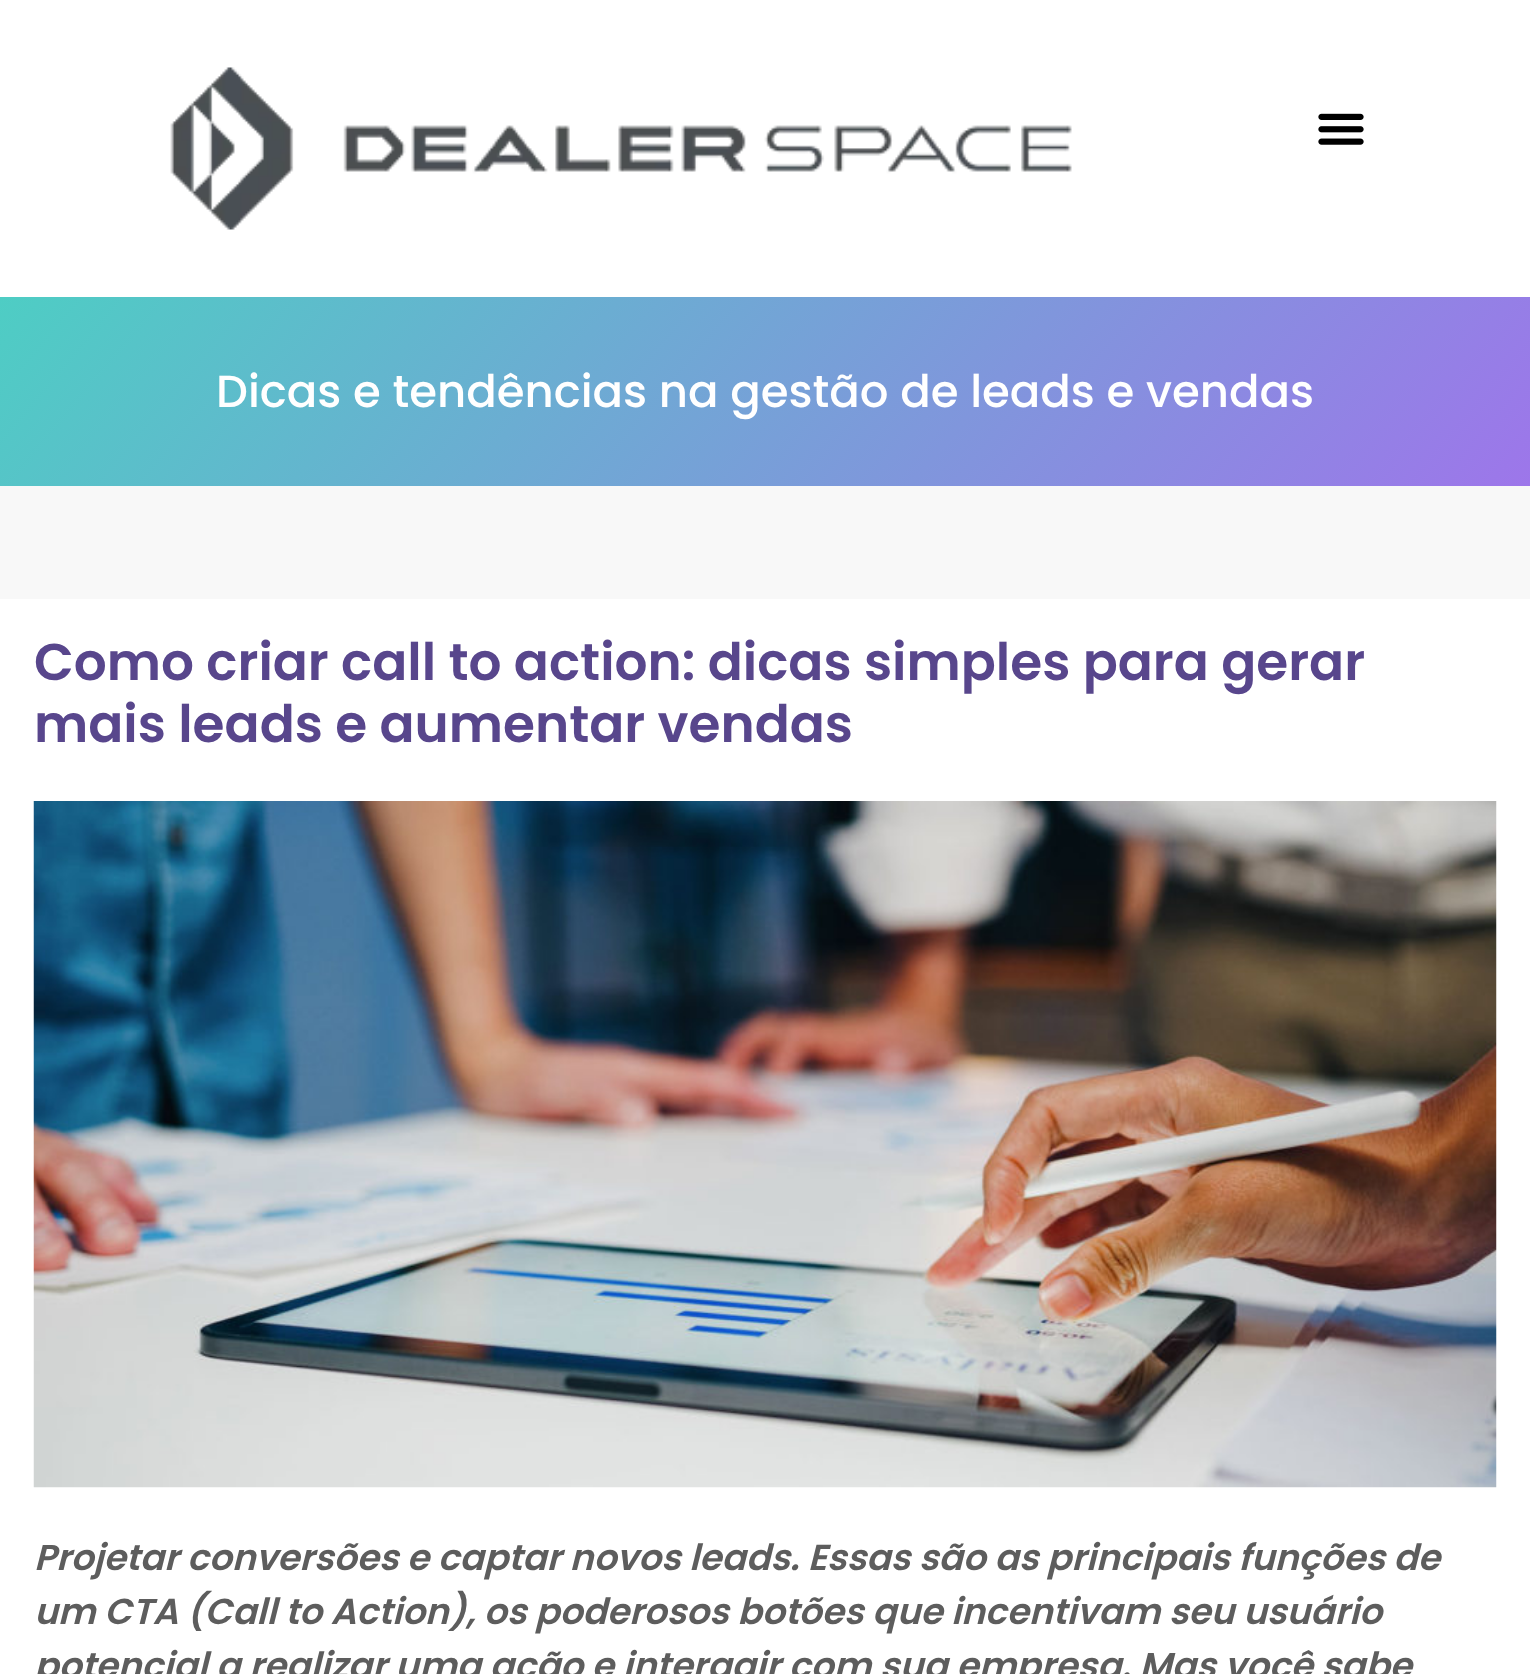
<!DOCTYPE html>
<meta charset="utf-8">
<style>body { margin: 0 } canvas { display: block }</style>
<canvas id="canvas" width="1530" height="1674"></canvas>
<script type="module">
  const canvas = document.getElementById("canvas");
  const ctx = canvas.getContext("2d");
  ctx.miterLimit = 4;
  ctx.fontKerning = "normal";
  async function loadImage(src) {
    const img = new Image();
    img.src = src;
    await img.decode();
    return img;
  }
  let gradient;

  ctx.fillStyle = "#ffffff";
  ctx.fillRect(0, 0, 1530, 1674);
  ctx.drawImage(await loadImage("img1.png"), 170, 67, 902, 163);
  ctx.drawImage(await loadImage("img2.png"), 1318, 113, 46, 32);
  gradient = ctx.createLinearGradient(270, -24, 1260, 807);
  gradient.addColorStop(0, "#4ecdc4");
  gradient.addColorStop(1, "#9d76ea");
  ctx.fillStyle = gradient;
  ctx.fillRect(0, 297, 1530, 189);
  ctx.font = "500 45px Poppins";
  ctx.fillStyle = "#ffffff";
  ctx.fillText("Dicas e tendências na gestão de leads e vendas", 216, 407);
  ctx.fillStyle = "#f8f8f8";
  ctx.fillRect(0, 486, 1530, 113);
  ctx.font = "600 51.75px Poppins";
  ctx.fillStyle = "#58468c";
  ctx.fillText("Como criar call to action: dicas simples para gerar", 34, 680);
  ctx.fillText("mais leads e aumentar vendas", 34, 742);
  ctx.drawImage(await loadImage("img3.png"), 33, 801, 1464, 687);
  ctx.font = "italic 600 36px Poppins";
  ctx.fillStyle = "#5d5d5d";
  ctx.fillText("Projetar conversões e captar novos leads. Essas são as principais funções de", 34, 1570);
  ctx.fillText("um CTA (Call to Action), os poderosos botões que incentivam seu usuário", 34, 1624);
  ctx.fillText("potencial a realizar uma ação e interagir com sua empresa. Mas você sabe", 34, 1678);
</script>
